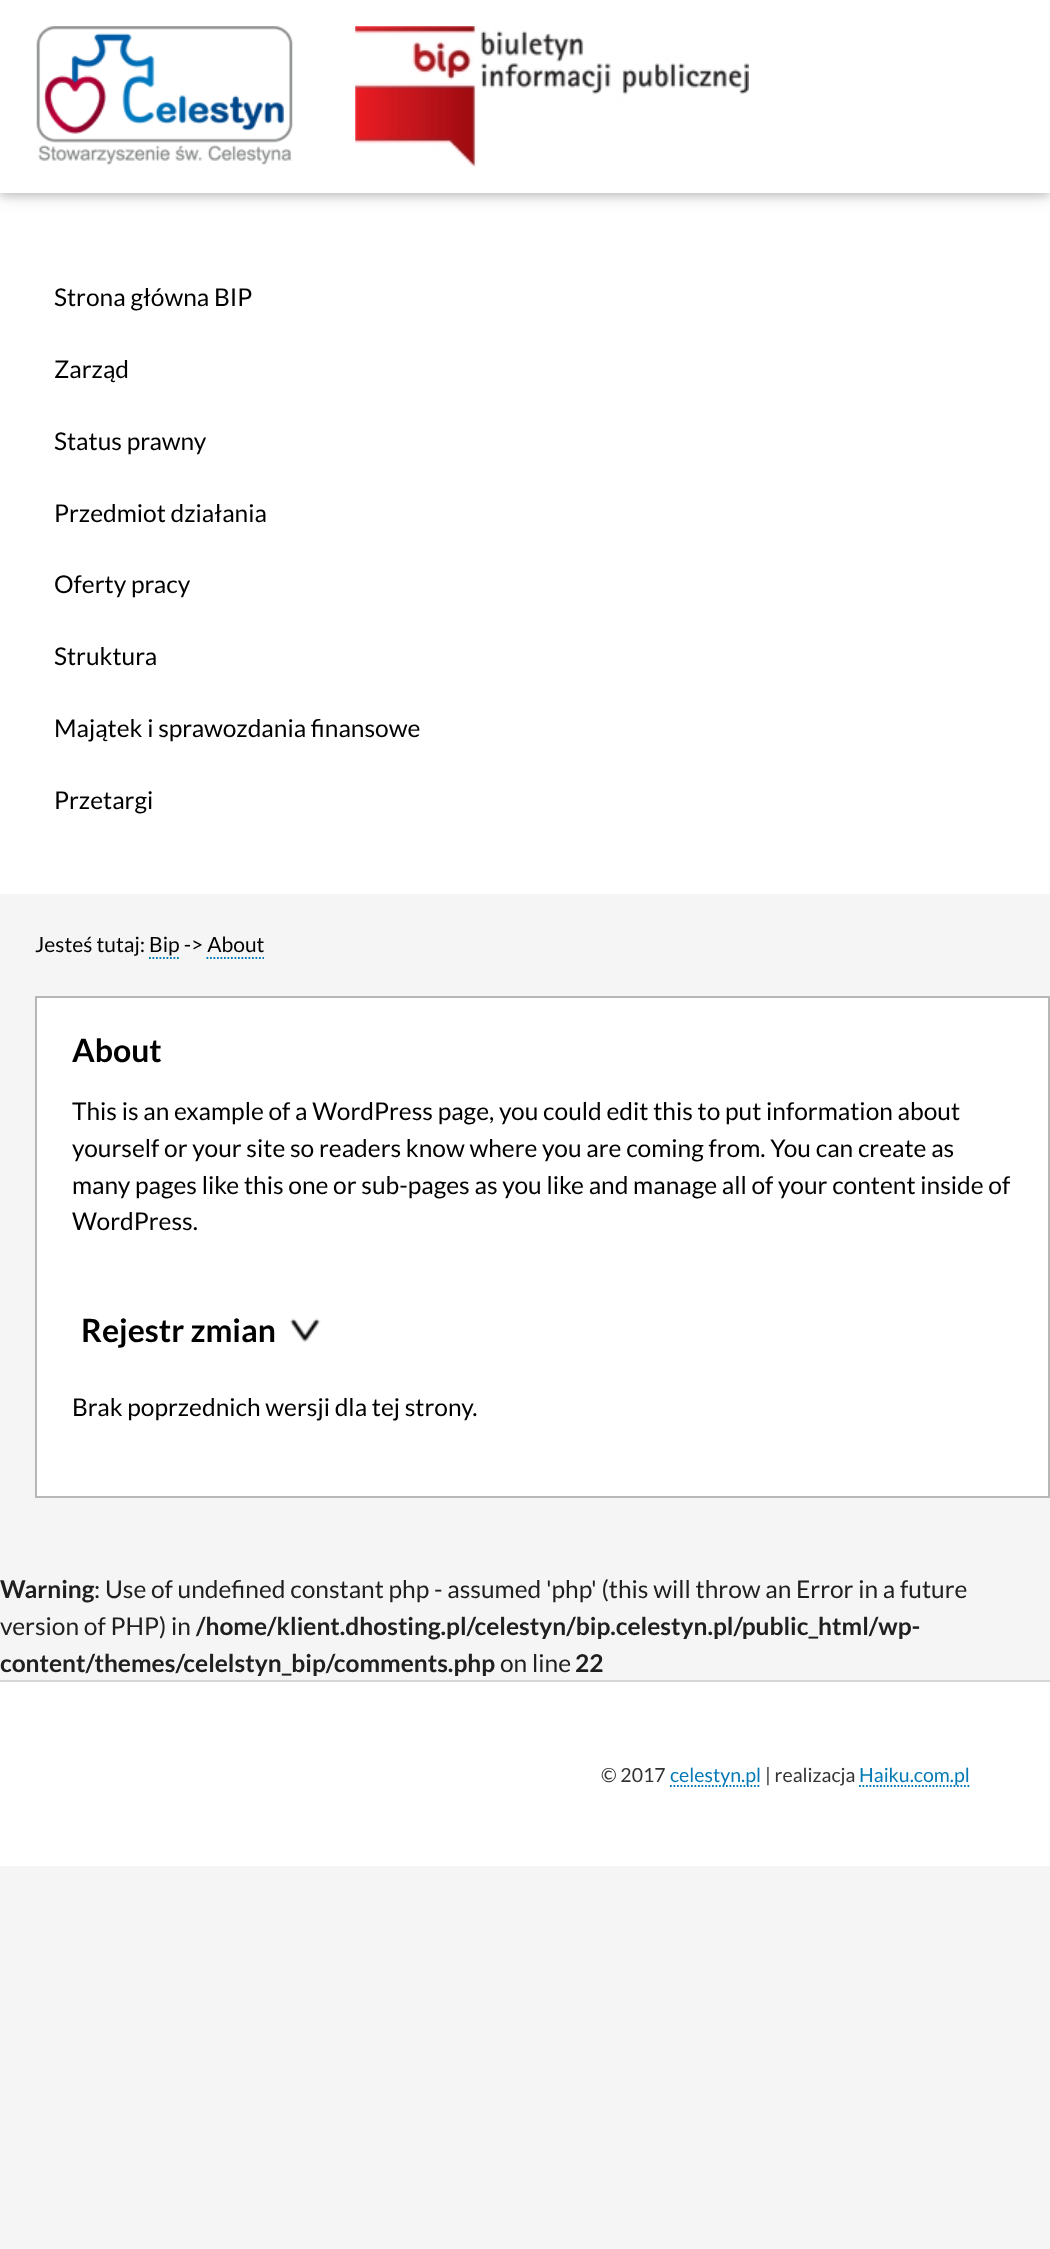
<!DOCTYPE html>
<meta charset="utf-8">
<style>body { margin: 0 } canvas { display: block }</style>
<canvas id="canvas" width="1050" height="2249"></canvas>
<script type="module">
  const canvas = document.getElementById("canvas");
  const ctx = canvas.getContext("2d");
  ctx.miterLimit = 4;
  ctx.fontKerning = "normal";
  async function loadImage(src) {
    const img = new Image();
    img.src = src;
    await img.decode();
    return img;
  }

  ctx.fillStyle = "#f5f5f5";
  ctx.fillRect(0, 0, 1050, 2249);
  ctx.fillStyle = "#ffffff";
  ctx.fillRect(0, 193, 1050, 701);
  ctx.fillStyle = "rgba(0, 0, 0, 0.12)";
  ctx.filter = "blur(9px)";
  ctx.beginPath();
  ctx.rect(0, 4, 1050, 192);
  ctx.fill();
  ctx.filter = "none";
  ctx.fillStyle = "rgba(0, 0, 0, 0.16)";
  ctx.filter = "blur(4.5px)";
  ctx.beginPath();
  ctx.rect(0, 4, 1050, 192);
  ctx.fill();
  ctx.filter = "none";
  ctx.fillStyle = "#ffffff";
  ctx.fillRect(0, 0, 1050, 193);
  ctx.drawImage(await loadImage("img1.png"), 36, 26, 257, 139);
  ctx.drawImage(await loadImage("img2.png"), 355, 26, 394, 141);
  ctx.font = "24.5px Lato";
  ctx.fillStyle = "#000000";
  ctx.fillText("Strona główna BIP", 54, 306);
  ctx.fillText("Zarząd", 54, 378);
  ctx.fillText("Status prawny", 54, 450);
  ctx.fillText("Przedmiot działania", 54, 522);
  ctx.fillText("Oferty pracy", 54, 593);
  ctx.fillText("Struktura", 54, 665);
  ctx.fillText("Majątek i sprawozdania finansowe", 54, 737);
  ctx.fillText("Przetargi", 54, 809);
  ctx.font = "21px Lato";
  ctx.fillText("Jesteś tutaj: Bip -> About", 35, 952);
  ctx.beginPath();
  ctx.moveTo(149, 958);
  ctx.lineTo(180, 958);
  ctx.strokeStyle = "#0379b5";
  ctx.lineWidth = 1.8;
  ctx.setLineDash([1.75, 1.75]);
  ctx.stroke();
  ctx.beginPath();
  ctx.moveTo(206.5, 958);
  ctx.lineTo(264, 958);
  ctx.stroke();
  ctx.fillStyle = "#ffffff";
  ctx.beginPath();
  ctx.rect(36, 997, 1013, 500);
  ctx.fill();
  ctx.strokeStyle = "#b7b7b7";
  ctx.lineWidth = 2;
  ctx.setLineDash([]);
  ctx.stroke();
  ctx.font = "bold 32px Lato";
  ctx.fillStyle = "#000000";
  ctx.fillText("About", 72, 1062);
  ctx.font = "24.5px Lato";
  ctx.fillText("This is an example of a WordPress page, you could edit this to put information about", 72, 1120);
  ctx.fillText("yourself or your site so readers know where you are coming from. You can create as", 72, 1157);
  ctx.fillText("many pages like this one or sub-pages as you like and manage all of your content inside of", 72, 1194);
  ctx.fillText("WordPress.", 72, 1230);
  ctx.drawImage(await loadImage("img3.png"), 290, 1318, 31, 24);
  ctx.font = "bold 32px Lato";
  ctx.fillText("Rejestr zmian", 81, 1342);
  ctx.font = "24.5px Lato";
  ctx.fillText("Brak poprzednich wersji dla tej strony.", 72, 1416);
  ctx.font = "bold 24.5px Lato";
  ctx.fillStyle = "#202020";
  ctx.fillText("Warning", 0, 1598);
  ctx.font = "24.5px Lato";
  ctx.fillText(": Use of undefined constant php - assumed 'php' (this will throw an Error in a future", 94, 1598);
  ctx.fillText("version of PHP) in", 0, 1635);
  ctx.font = "bold 24.5px Lato";
  ctx.fillText("/home/klient.dhosting.pl/celestyn/bip.celestyn.pl/public_html/wp-", 196, 1635);
  ctx.fillText("content/themes/celelstyn_bip/comments.php", 0, 1672);
  ctx.font = "24.5px Lato";
  ctx.fillText("on line", 500, 1672);
  ctx.font = "bold 24.5px Lato";
  ctx.fillText("22", 575, 1672);
  ctx.fillStyle = "#ffffff";
  ctx.fillRect(0, 1682, 1050, 184);
  ctx.fillStyle = "#d6d6d6";
  ctx.fillRect(0, 1680, 1050, 2);
  ctx.font = "19.5px Lato";
  ctx.fillStyle = "#333333";
  ctx.fillText("© 2017", 601, 1782);
  ctx.beginPath();
  ctx.moveTo(670, 1786);
  ctx.lineTo(761, 1786);
  ctx.strokeStyle = "#0379b5";
  ctx.lineWidth = 1.8;
  ctx.setLineDash([1.75, 1.75]);
  ctx.stroke();
  ctx.fillStyle = "#0379b5";
  ctx.fillText("celestyn.pl", 670, 1782);
  ctx.fillStyle = "#333333";
  ctx.fillText("| realizacja", 765, 1782);
  ctx.beginPath();
  ctx.moveTo(859, 1786);
  ctx.lineTo(971, 1786);
  ctx.stroke();
  ctx.fillStyle = "#0379b5";
  ctx.fillText("Haiku.com.pl", 859, 1782);
</script>
